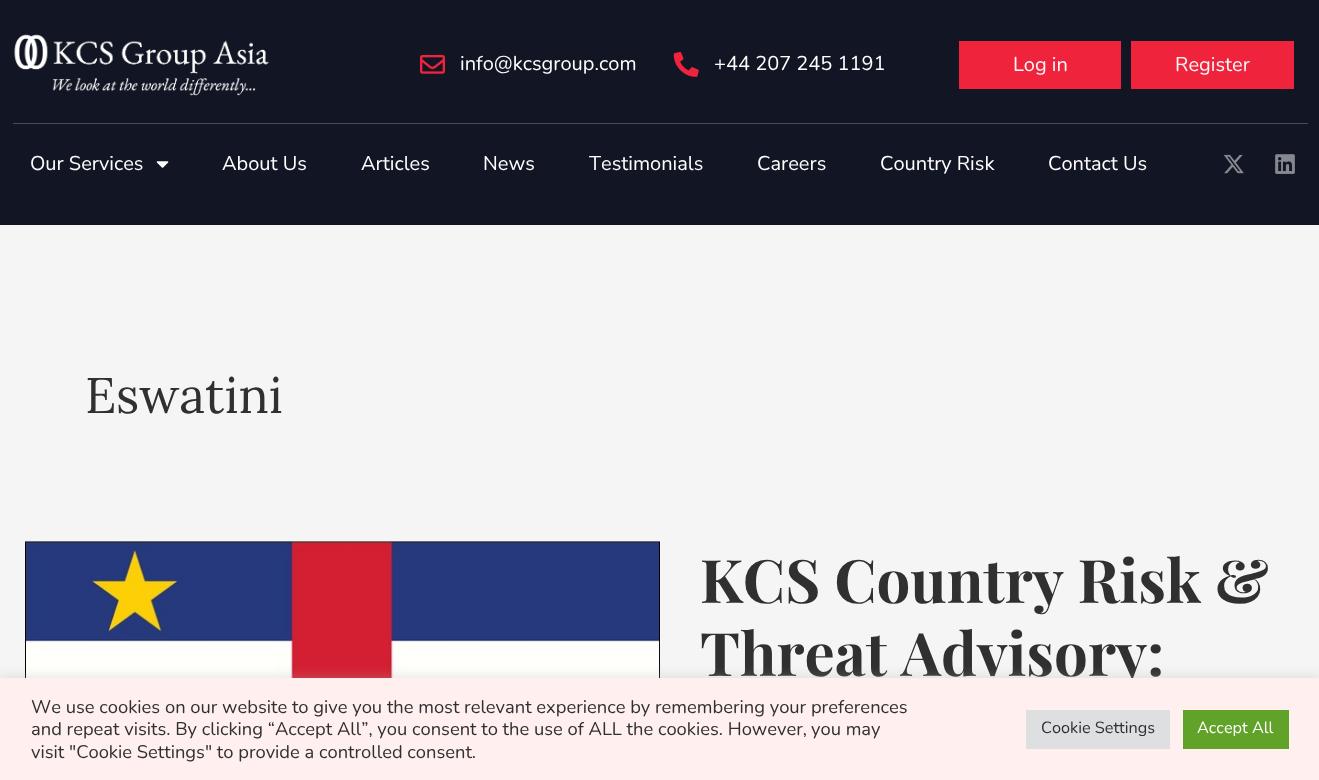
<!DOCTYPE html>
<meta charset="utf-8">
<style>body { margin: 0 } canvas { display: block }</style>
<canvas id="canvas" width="1319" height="780"></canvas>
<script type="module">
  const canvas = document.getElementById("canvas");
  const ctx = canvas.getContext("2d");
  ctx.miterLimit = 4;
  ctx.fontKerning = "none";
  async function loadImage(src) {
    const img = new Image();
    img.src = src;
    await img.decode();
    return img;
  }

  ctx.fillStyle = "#f5f5f5";
  ctx.fillRect(0, 0, 1319, 780);
  ctx.fillStyle = "#121624";
  ctx.fillRect(0, 0, 1319, 225);
  ctx.fillStyle = "#494c56";
  ctx.fillRect(13, 123, 1295, 1);
  ctx.drawImage(await loadImage("img1.png"), 14, 34, 255, 62);
  ctx.drawImage(await loadImage("img2.png"), 420, 55, 25, 19);
  ctx.font = "20px Nunito";
  ctx.fillStyle = "#ffffff";
  ctx.fillText("info@kcsgroup.com", 460, 70);
  ctx.drawImage(await loadImage("img3.png"), 673, 51, 26, 26);
  ctx.fillText("+44 207 245 1191", 714, 70);
  ctx.fillStyle = "#ef233c";
  ctx.fillRect(959, 41, 162, 48);
  ctx.fillStyle = "#f8f8f8";
  ctx.fillText("Log in", 1013, 71);
  ctx.fillStyle = "#ef233c";
  ctx.fillRect(1131, 41, 163, 48);
  ctx.fillStyle = "#f8f8f8";
  ctx.fillText("Register", 1175, 71);
  ctx.font = "20px Nunito Sans";
  ctx.fillStyle = "#ffffff";
  ctx.fillText("Our Services", 30, 170);
  ctx.drawImage(await loadImage("img4.png"), 156, 161, 13, 7);
  ctx.fillText("About Us", 222, 170);
  ctx.fillText("Articles", 361, 170);
  ctx.fillText("News", 483, 170);
  ctx.fillText("Testimonials", 589, 170);
  ctx.fillText("Careers", 757, 170);
  ctx.fillText("Country Risk", 880, 170);
  ctx.fillText("Contact Us", 1048, 170);
  ctx.drawImage(await loadImage("img5.png"), 1224, 154, 20, 20);
  ctx.drawImage(await loadImage("img6.png"), 1275, 154, 20, 20);
  ctx.fillStyle = "#f2f5f7";
  ctx.fillRect(25, 490, 1270, 1);
  ctx.font = "50px Lora";
  ctx.fillStyle = "#303030";
  ctx.fillText("Eswatini", 85, 413);
  ctx.drawImage(await loadImage("img7.png"), 25, 541, 635, 137);
  ctx.font = "bold 60px Playfair Display";
  ctx.fillText("KCS Country Risk &", 700, 603);
  ctx.fillText("Threat Advisory:", 700, 676);
  ctx.fillStyle = "rgba(172, 171, 171, 0.3)";
  ctx.filter = "blur(6px)";
  ctx.beginPath();
  ctx.rect(0, 676, 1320, 103);
  ctx.fill();
  ctx.filter = "none";
  ctx.fillStyle = "#ffefef";
  ctx.fillRect(0, 678, 1319, 102);
  ctx.font = "18.35px Nunito";
  ctx.fillStyle = "#303030";
  ctx.fillText("We use cookies on our website to give you the most relevant experience by remembering your preferences", 31, 713);
  ctx.fillText("and repeat visits. By clicking “Accept All”, you consent to the use of ALL the cookies. However,", 31, 735);
  ctx.fillText("you may", 811, 735);
  ctx.fillText("visit \"Cookie Settings\" to provide a controlled consent.", 31, 758);
  ctx.fillStyle = "#dedfe0";
  ctx.fillRect(1026, 710, 144, 39);
  ctx.font = "16.25px Nunito";
  ctx.fillStyle = "#303030";
  ctx.fillText("Cookie Settings", 1041, 733);
  ctx.fillStyle = "#61a229";
  ctx.fillRect(1183, 710, 106, 39);
  ctx.fillStyle = "#ffffff";
  ctx.fillText("Accept All", 1197, 733);
</script>
